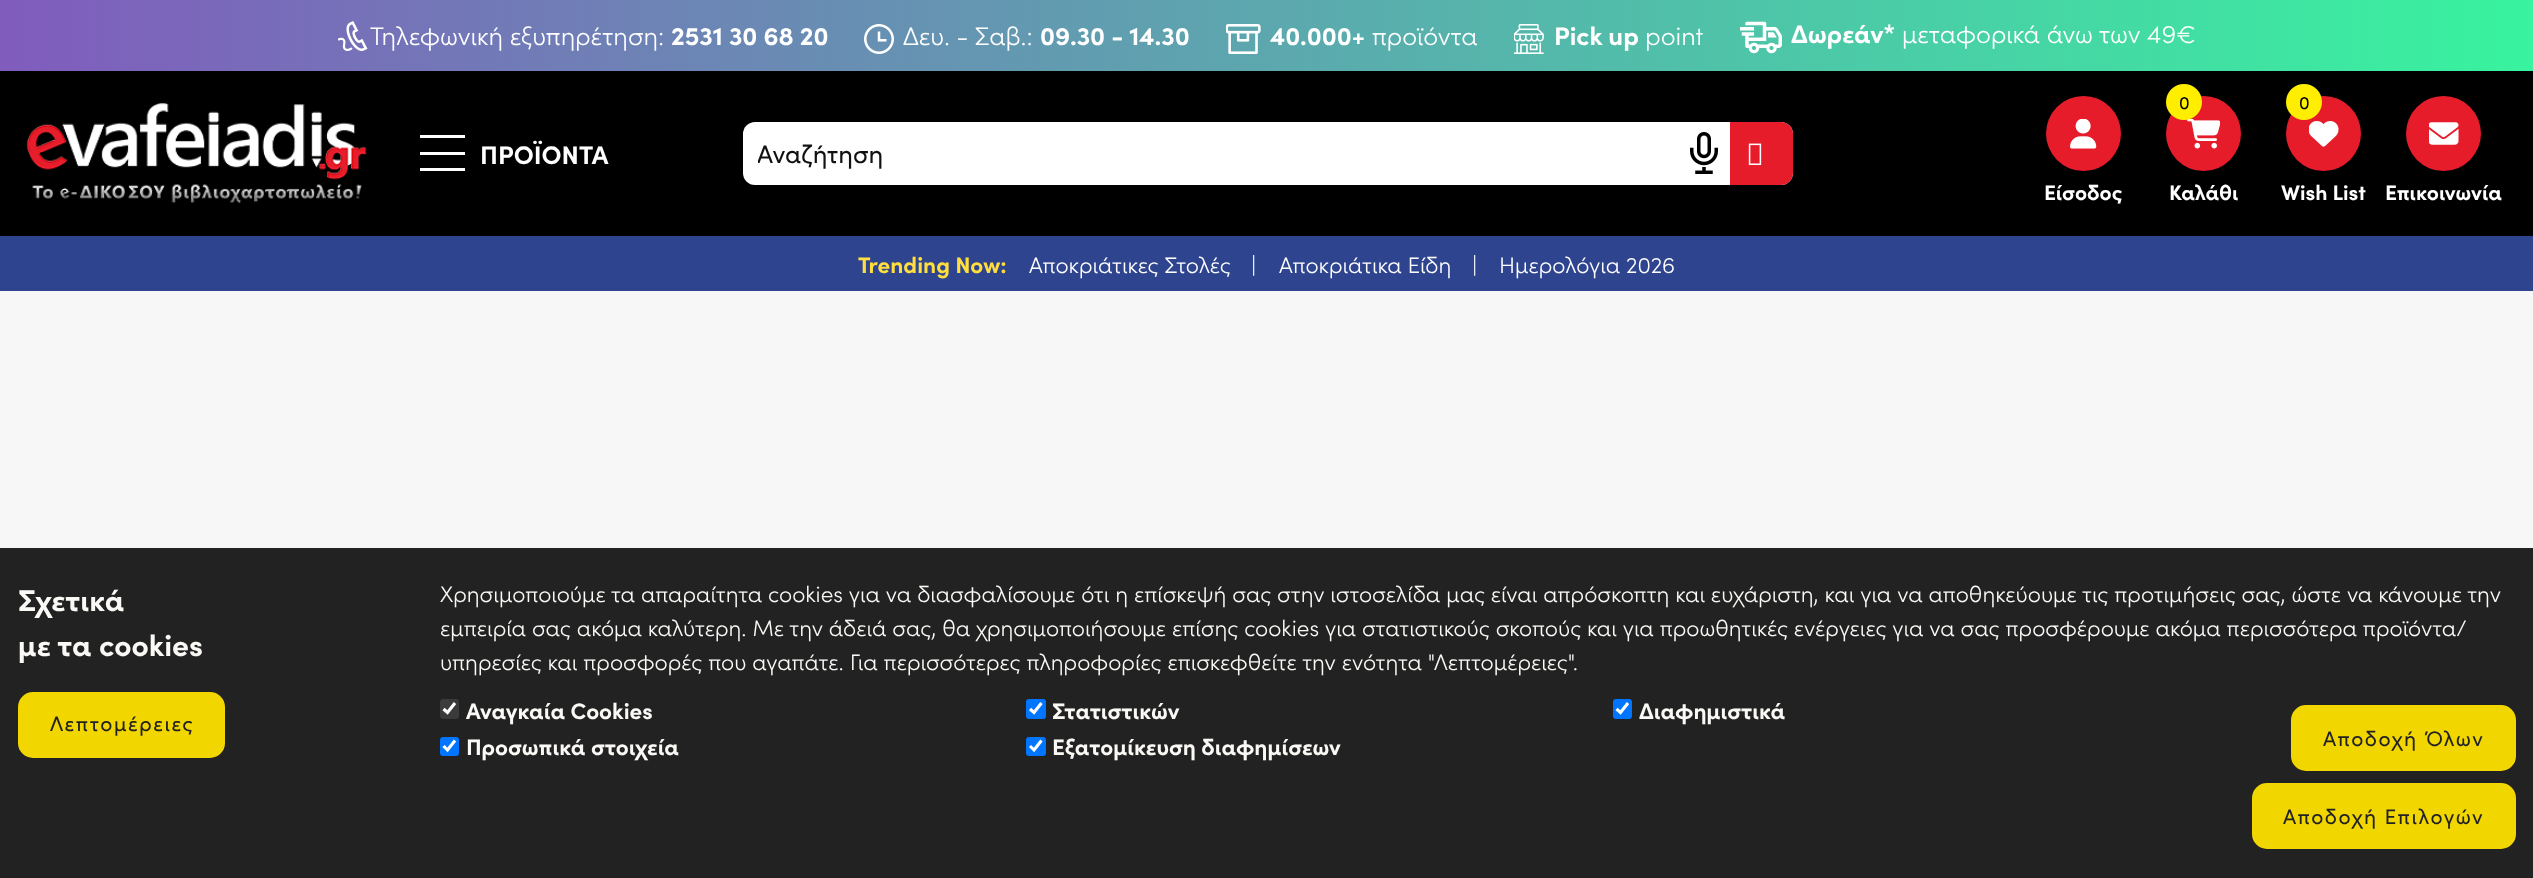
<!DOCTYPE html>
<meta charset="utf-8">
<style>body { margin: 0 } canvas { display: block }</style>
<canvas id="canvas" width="2533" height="878"></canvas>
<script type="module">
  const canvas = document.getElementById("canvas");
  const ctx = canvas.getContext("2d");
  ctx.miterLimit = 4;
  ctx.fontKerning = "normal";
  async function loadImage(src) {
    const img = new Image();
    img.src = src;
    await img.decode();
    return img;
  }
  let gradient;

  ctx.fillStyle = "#f7f7f7";
  ctx.fillRect(0, 0, 2533, 878);
  ctx.fillStyle = "#000000";
  ctx.fillRect(0, 71, 2533, 165);
  gradient = ctx.createLinearGradient(0, 35, 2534, 35);
  gradient.addColorStop(0, "#805cbd");
  gradient.addColorStop(1, "#38f39f");
  ctx.fillStyle = gradient;
  ctx.fillRect(0, 0, 2533, 71);
  ctx.drawImage(await loadImage("img1.png"), 338, 21, 30, 30);
  ctx.font = "300 25.5px Sofia";
  ctx.fillStyle = "#ffffff";
  ctx.fillText("Τηλεφωνική εξυπηρέτηση:", 370, 45);
  ctx.font = "bold 25.5px Sofia";
  ctx.fillText("2531 30 68 20", 671, 45);
  ctx.drawImage(await loadImage("img2.png"), 864, 24, 30, 30);
  ctx.font = "300 25.5px Sofia";
  ctx.fillText("Δευ. - Σαβ.:", 903, 45);
  ctx.font = "bold 25.5px Sofia";
  ctx.fillText("09.30 - 14.30", 1040, 45);
  ctx.drawImage(await loadImage("img3.png"), 1226, 24, 35, 30);
  ctx.fillText("40.000+", 1270, 45);
  ctx.font = "300 25.5px Sofia";
  ctx.fillText("προϊόντα", 1372, 45);
  ctx.drawImage(await loadImage("img4.png"), 1514, 24, 30, 30);
  ctx.font = "bold 25.5px Sofia";
  ctx.fillText("Pick up", 1554, 45);
  ctx.font = "300 25.5px Sofia";
  ctx.fillText("point", 1645, 45);
  ctx.drawImage(await loadImage("img5.png"), 1740, 21, 42, 33);
  ctx.font = "bold 25.5px Sofia";
  ctx.fillText("Δωρεάν*", 1791, 43);
  ctx.font = "300 25.5px Sofia";
  ctx.fillText("μεταφορικά άνω των 49€", 1902, 43);
  ctx.drawImage(await loadImage("img6.png"), 26, 102, 341, 102);
  ctx.fillRect(420, 135, 45, 3);
  ctx.fillRect(420, 152, 45, 3);
  ctx.fillRect(420, 168, 45, 3);
  ctx.font = "bold 25.5px Sofia";
  ctx.fillText("ΠΡΟΪΟΝΤΑ", 480, 164);
  ctx.beginPath();
  ctx.roundRect(743, 122, 1050, 63, 12);
  ctx.fill();
  ctx.save();
  ctx.beginPath();
  ctx.rect(758, 137, 1008, 34);
  ctx.clip();
  ctx.font = "25.5px Sofia";
  ctx.fillStyle = "#111111";
  ctx.fillText("Αναζήτηση", 757, 163);
  ctx.restore();
  ctx.drawImage(await loadImage("img7.png"), 1690, 132, 28, 42);
  ctx.fillStyle = "#e61c2b";
  ctx.beginPath();
  ctx.roundRect(1730, 122, 63, 63, [0, 12, 12, 0]);
  ctx.fill();
  ctx.drawImage(await loadImage("img8.png"), 1748, 143, 14, 22);
  ctx.beginPath();
  ctx.arc(2083.5, 133.5, 37.5, 0, Math.PI * 2);
  ctx.fill();
  ctx.drawImage(await loadImage("img9.png"), 2070, 119, 27, 30);
  ctx.font = "bold 21px Sofia";
  ctx.fillStyle = "#ffffff";
  ctx.fillText("Είσοδος", 2044, 200);
  ctx.fillStyle = "#e61c2b";
  ctx.beginPath();
  ctx.arc(2203.5, 133.5, 37.5, 0, Math.PI * 2);
  ctx.fill();
  ctx.drawImage(await loadImage("img10.png"), 2187, 119, 33, 30);
  ctx.fillStyle = "#ffee00";
  ctx.beginPath();
  ctx.arc(2184, 102, 18, 0, Math.PI * 2);
  ctx.fill();
  ctx.font = "18px Sofia";
  ctx.fillStyle = "#000000";
  ctx.fillText("0", 2179, 109);
  ctx.font = "bold 21px Sofia";
  ctx.fillStyle = "#ffffff";
  ctx.fillText("Καλάθι", 2169, 200);
  ctx.fillStyle = "#e61c2b";
  ctx.beginPath();
  ctx.arc(2323.5, 133.5, 37.5, 0, Math.PI * 2);
  ctx.fill();
  ctx.fillStyle = "#ffee00";
  ctx.beginPath();
  ctx.arc(2304, 102, 18, 0, Math.PI * 2);
  ctx.fill();
  ctx.font = "18px Sofia";
  ctx.fillStyle = "#000000";
  ctx.fillText("0", 2299, 109);
  ctx.drawImage(await loadImage("img11.png"), 2309, 121, 30, 26);
  ctx.font = "bold 21px Sofia";
  ctx.fillStyle = "#ffffff";
  ctx.fillText("Wish List", 2281, 200);
  ctx.fillStyle = "#e61c2b";
  ctx.beginPath();
  ctx.arc(2443.5, 133.5, 37.5, 0, Math.PI * 2);
  ctx.fill();
  ctx.drawImage(await loadImage("img12.png"), 2429, 122, 30, 23);
  ctx.fillStyle = "#ffffff";
  ctx.fillText("Επικοινωνία", 2385, 200);
  ctx.fillStyle = "#2f448f";
  ctx.fillRect(0, 236, 2533, 55);
  ctx.font = "bold 22.5px Sofia";
  ctx.fillStyle = "#ffde3e";
  ctx.fillText("Trending Now:", 858, 273);
  ctx.font = "300 22.5px Sofia";
  ctx.fillStyle = "#ffffff";
  ctx.fillText("Αποκριάτικες Στολές", 1029, 273);
  ctx.fillText("|", 1251, 273);
  ctx.fillText("Αποκριάτικα Είδη", 1279, 273);
  ctx.fillText("|", 1472, 273);
  ctx.fillText("Ημερολόγια 2026", 1499, 273);
  ctx.fillStyle = "#222222";
  ctx.fillRect(0, 548, 2533, 330);
  ctx.font = "bold 30px Sofia";
  ctx.fillStyle = "#faf9f6";
  ctx.fillText("Σχετικά", 18, 611);
  ctx.fillText("με τα cookies", 18, 656);
  ctx.fillStyle = "#f2d600";
  ctx.beginPath();
  ctx.roundRect(19, 693, 205, 64, 14);
  ctx.fill();
  ctx.strokeStyle = "#f2d600";
  ctx.lineWidth = 2;
  ctx.stroke();
  ctx.letterSpacing = "1.5px";
  ctx.font = "21px Sofia";
  ctx.fillStyle = "#222222";
  ctx.fillText("Λεπτομέρειες", 50, 731);
  ctx.letterSpacing = "0px";
  ctx.font = "300 22.5px Sofia";
  ctx.fillStyle = "#faf9f6";
  ctx.fillText("Χρησιμοποιούμε τα απαραίτητα cookies για να διασφαλίσουμε ότι η επίσκεψή σας στην ιστοσελίδα μας είναι απρόσκοπτη και ευχάριστη, και για να αποθηκεύουμε τις προτιμήσεις σας, ώστε να κάνουμε την", 440, 602);
  ctx.fillText("εμπειρία σας ακόμα καλύτερη. Με την άδειά σας, θα χρησιμοποιήσουμε επίσης cookies για στατιστικούς σκοπούς και για προωθητικές ενέργειες για να σας προσφέρουμε ακόμα περισσότερα προϊόντα/", 440, 636);
  ctx.fillText("υπηρεσίες και προσφορές που αγαπάτε. Για περισσότερες πληροφορίες επισκεφθείτε την ενότητα \"Λεπτομέρειες\".", 440, 670);
  ctx.fillStyle = "#3b3b3b";
  ctx.beginPath();
  ctx.roundRect(440, 699, 19, 20, 3);
  ctx.fill();
  ctx.beginPath();
  ctx.moveTo(443.5, 709);
  ctx.lineTo(447.5, 712.5);
  ctx.lineTo(455, 703);
  ctx.strokeStyle = "#ffffff";
  ctx.lineWidth = 3.1;
  ctx.stroke();
  ctx.font = "bold 22.5px Sofia";
  ctx.fillStyle = "#faf9f6";
  ctx.fillText("Αναγκαία Cookies", 466, 719);
  ctx.fillStyle = "#0075ff";
  ctx.beginPath();
  ctx.roundRect(1026, 699, 20, 20, 3);
  ctx.fill();
  ctx.beginPath();
  ctx.moveTo(1030, 709);
  ctx.lineTo(1034, 712.5);
  ctx.lineTo(1041.5, 703);
  ctx.stroke();
  ctx.fillStyle = "#faf9f6";
  ctx.fillText("Στατιστικών", 1052, 719);
  ctx.fillStyle = "#0075ff";
  ctx.beginPath();
  ctx.roundRect(1613, 699, 19, 20, 3);
  ctx.fill();
  ctx.beginPath();
  ctx.moveTo(1616.5, 709);
  ctx.lineTo(1620.5, 712.5);
  ctx.lineTo(1628, 703);
  ctx.stroke();
  ctx.fillStyle = "#faf9f6";
  ctx.fillText("Διαφημιστικά", 1639, 719);
  ctx.fillStyle = "#0075ff";
  ctx.beginPath();
  ctx.roundRect(440, 737, 19, 19, 3);
  ctx.fill();
  ctx.beginPath();
  ctx.moveTo(443.5, 746);
  ctx.lineTo(447.5, 750);
  ctx.lineTo(455, 740.5);
  ctx.stroke();
  ctx.fillStyle = "#faf9f6";
  ctx.fillText("Προσωπικά στοιχεία", 466, 755);
  ctx.fillStyle = "#0075ff";
  ctx.beginPath();
  ctx.roundRect(1026, 737, 20, 19, 3);
  ctx.fill();
  ctx.beginPath();
  ctx.moveTo(1030, 746);
  ctx.lineTo(1034, 750);
  ctx.lineTo(1041.5, 740.5);
  ctx.stroke();
  ctx.fillStyle = "#faf9f6";
  ctx.fillText("Εξατομίκευση διαφημίσεων", 1052, 755);
  ctx.fillStyle = "#f2d600";
  ctx.beginPath();
  ctx.roundRect(2292, 706, 223, 64, 14);
  ctx.fill();
  ctx.strokeStyle = "#f2d600";
  ctx.lineWidth = 2;
  ctx.stroke();
  ctx.letterSpacing = "1.5px";
  ctx.font = "21px Sofia";
  ctx.fillStyle = "#222222";
  ctx.fillText("Αποδοχή Όλων", 2323, 746);
  ctx.fillStyle = "#f2d600";
  ctx.beginPath();
  ctx.roundRect(2253, 784, 262, 64, 14);
  ctx.fill();
  ctx.stroke();
  ctx.fillStyle = "#222222";
  ctx.fillText("Αποδοχή Επιλογών", 2283, 824);
</script>
